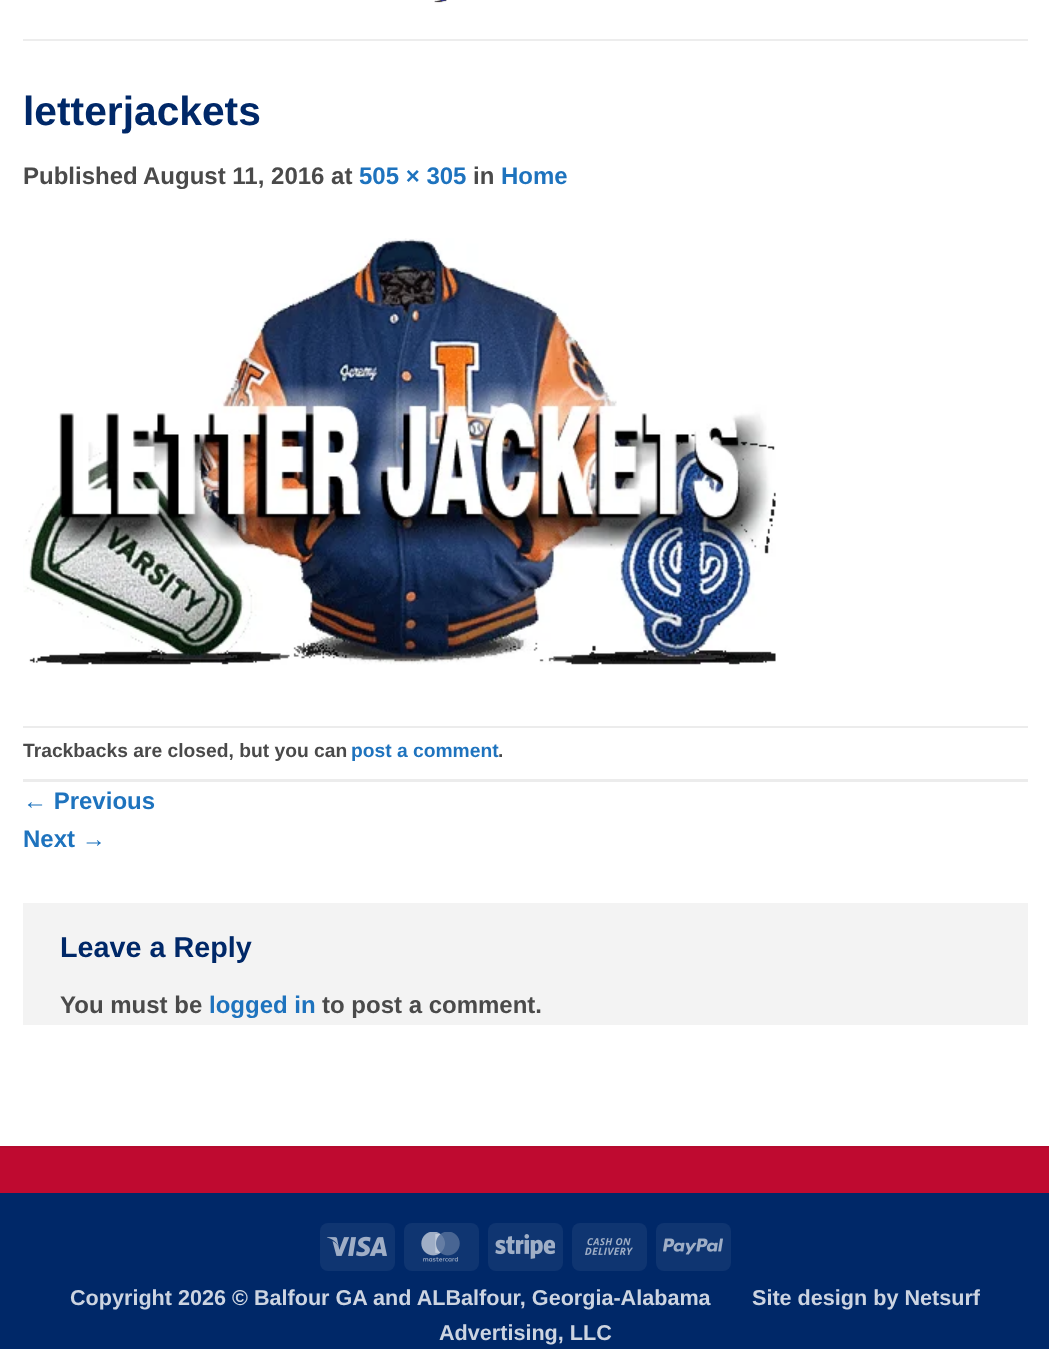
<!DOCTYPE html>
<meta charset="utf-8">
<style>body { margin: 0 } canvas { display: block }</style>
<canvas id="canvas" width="1049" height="1349"></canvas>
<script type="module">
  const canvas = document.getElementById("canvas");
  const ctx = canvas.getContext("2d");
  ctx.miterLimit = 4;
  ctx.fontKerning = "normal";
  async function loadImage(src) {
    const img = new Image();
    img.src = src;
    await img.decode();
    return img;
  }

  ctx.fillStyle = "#ffffff";
  ctx.fillRect(0, 0, 1049, 1349);
  ctx.drawImage(await loadImage("img1.png"), 434, 0, 13, 3);
  ctx.fillStyle = "#ededed";
  ctx.fillRect(23, 39, 1005, 2);
  ctx.font = "bold 40.75px Liberation Sans";
  ctx.fillStyle = "#002868";
  ctx.fillText("letterjackets", 23, 125);
  ctx.font = "bold 24px Liberation Sans";
  ctx.fillStyle = "#4a4a4a";
  ctx.fillText("Published", 23, 184);
  ctx.fillText("August 11, 2016 at", 143, 184);
  ctx.fillStyle = "#1e73be";
  ctx.fillText("505 × 305", 359, 184);
  ctx.fillStyle = "#4a4a4a";
  ctx.fillText("in", 473, 184);
  ctx.fillStyle = "#1e73be";
  ctx.fillText("Home", 501, 184);
  ctx.drawImage(await loadImage("img2.png"), 23, 238, 753, 427);
  ctx.fillStyle = "#ececec";
  ctx.fillRect(23, 726, 1005, 2);
  ctx.fillRect(23, 779, 1005, 3);
  ctx.font = "bold 19.25px Liberation Sans";
  ctx.fillStyle = "#4a4a4a";
  ctx.fillText("Trackbacks are closed, but you can", 23, 757);
  ctx.fillStyle = "#1e73be";
  ctx.fillText("post a comment", 351, 757);
  ctx.fillStyle = "#4a4a4a";
  ctx.fillText(".", 498, 757);
  ctx.font = "bold 24px Liberation Sans";
  ctx.fillStyle = "#1e73be";
  ctx.fillText("← Previous", 23, 809);
  ctx.fillText("Next →", 23, 847);
  ctx.fillStyle = "#f3f3f3";
  ctx.fillRect(23, 903, 1005, 122);
  ctx.font = "bold 28.75px Liberation Sans";
  ctx.fillStyle = "#002868";
  ctx.fillText("Leave a Reply", 60, 957);
  ctx.font = "bold 24px Liberation Sans";
  ctx.fillStyle = "#4a4a4a";
  ctx.fillText("You must be", 60, 1013);
  ctx.fillStyle = "#1e73be";
  ctx.fillText("logged in", 209, 1013);
  ctx.fillStyle = "#4a4a4a";
  ctx.fillText("to post a comment.", 322, 1013);
  ctx.fillStyle = "#bf0a30";
  ctx.fillRect(0, 1148, 1049, 45);
  ctx.fillStyle = "#b50a2e";
  ctx.fillRect(0, 1146, 1049, 2);
  ctx.fillStyle = "#002868";
  ctx.fillRect(0, 1193, 1049, 156);
  ctx.fillStyle = "#0f3571";
  ctx.beginPath();
  ctx.roundRect(320, 1223, 75, 48, 8);
  ctx.fill();
  ctx.drawImage(await loadImage("img3.png"), 327, 1236, 60, 21);
  ctx.beginPath();
  ctx.roundRect(404, 1223, 75, 48, 8);
  ctx.fill();
  ctx.drawImage(await loadImage("img4.png"), 421, 1232, 39, 30);
  ctx.beginPath();
  ctx.roundRect(488, 1223, 75, 48, 8);
  ctx.fill();
  ctx.drawImage(await loadImage("img5.png"), 495, 1234, 60, 25);
  ctx.beginPath();
  ctx.roundRect(572, 1223, 75, 48, 8);
  ctx.fill();
  ctx.drawImage(await loadImage("img6.png"), 585, 1238, 48, 17);
  ctx.beginPath();
  ctx.roundRect(656, 1223, 75, 48, 8);
  ctx.fill();
  ctx.drawImage(await loadImage("img7.png"), 663, 1238, 60, 17);
  ctx.font = "bold 21.6px Liberation Sans";
  ctx.fillStyle = "#ccd4e1";
  ctx.fillText("Copyright 2026 © Balfour GA and ALBalfour, Georgia-Alabama", 70, 1305);
  ctx.fillText("Site design by Netsurf", 752, 1305);
  ctx.fillText("Advertising, LLC", 439, 1340);
</script>
